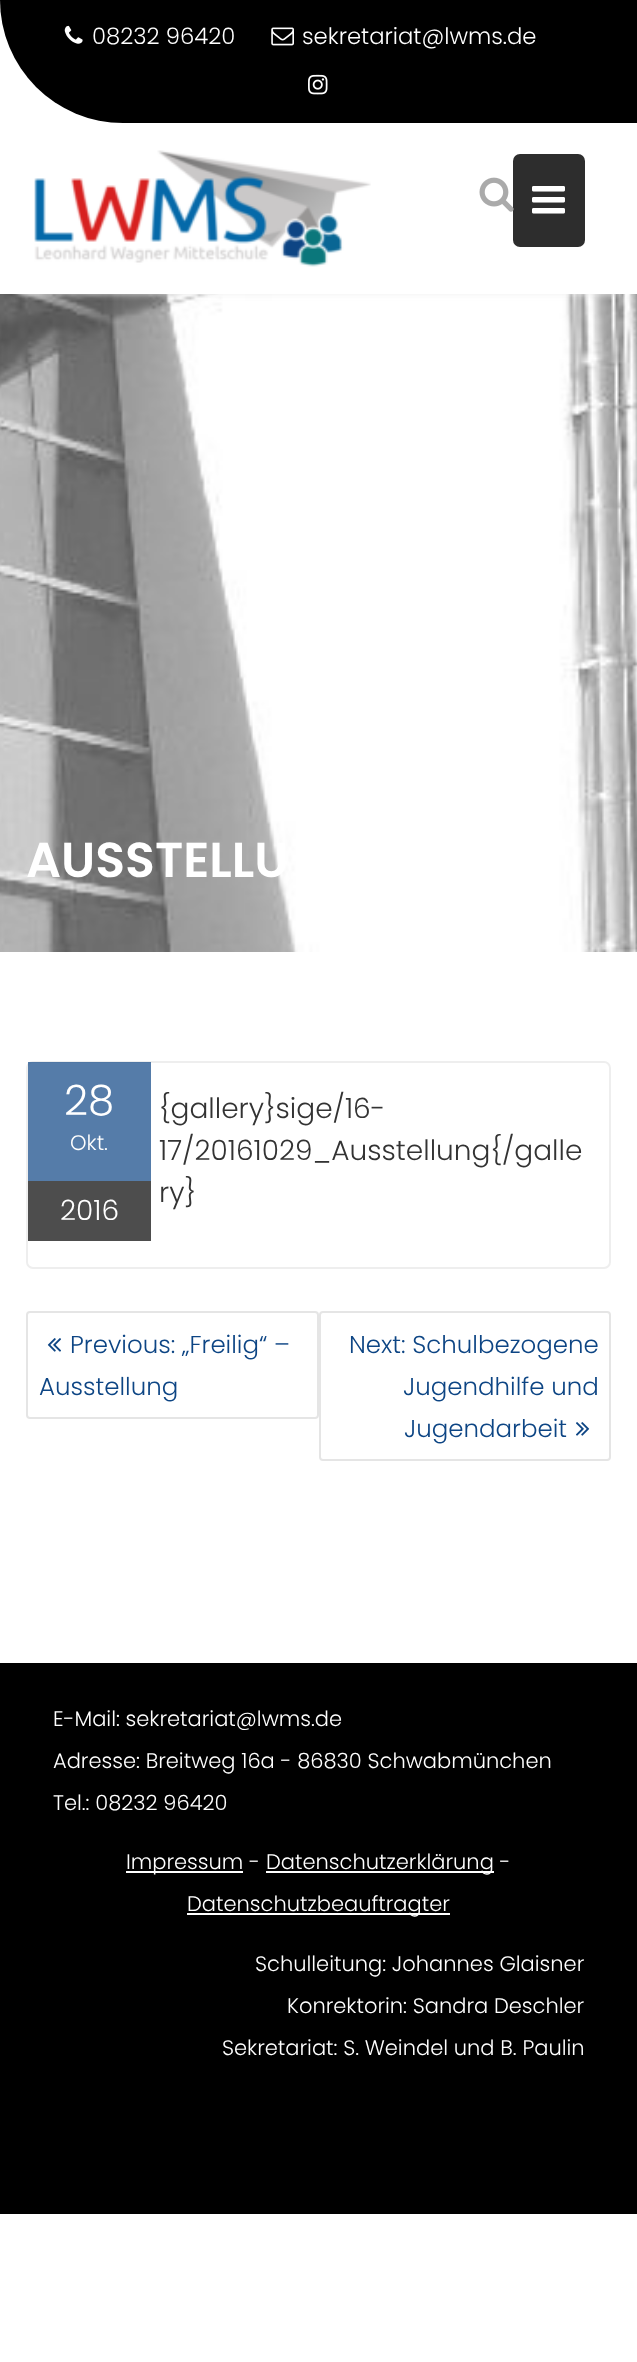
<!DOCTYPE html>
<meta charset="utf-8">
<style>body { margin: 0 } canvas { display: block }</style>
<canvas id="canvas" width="637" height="2362"></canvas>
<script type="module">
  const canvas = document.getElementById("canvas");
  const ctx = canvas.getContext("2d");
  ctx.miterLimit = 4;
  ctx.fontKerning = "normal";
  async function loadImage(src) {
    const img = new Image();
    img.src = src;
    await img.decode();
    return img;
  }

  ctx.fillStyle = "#ffffff";
  ctx.fillRect(0, 0, 637, 2362);
  ctx.fillStyle = "#000000";
  ctx.beginPath();
  ctx.roundRect(0, 0, 637, 123, [0, 0, 0, 123]);
  ctx.fill();
  ctx.drawImage(await loadImage("img1.png"), 64, 25, 19, 19);
  ctx.font = "300 22.75px Poppins";
  ctx.fillStyle = "#ffffff";
  ctx.fillText("08232 96420", 92, 44);
  ctx.drawImage(await loadImage("img2.png"), 271, 27, 23, 19);
  ctx.fillText("sekretariat@lwms.de", 302, 44);
  ctx.drawImage(await loadImage("img3.png"), 308, 74, 20, 21);
  ctx.drawImage(await loadImage("img7.png"), 0, 294, 637, 658);
  ctx.save();
  ctx.beginPath();
  ctx.rect(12, 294, 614, 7);
  ctx.clip();
  ctx.fillStyle = "rgba(238, 238, 238, 0.9)";
  ctx.filter = "blur(3.5px)";
  ctx.beginPath();
  ctx.rect(18, 158, 602, 136);
  ctx.fill();
  ctx.filter = "none";
  ctx.restore();
  ctx.drawImage(await loadImage("img4.png"), 34, 150, 337, 117);
  ctx.fillStyle = "#2d2d2d";
  ctx.beginPath();
  ctx.roundRect(513, 154, 72, 93, 7);
  ctx.fill();
  ctx.drawImage(await loadImage("img5.png"), 479, 177, 35, 35);
  ctx.drawImage(await loadImage("img6.png"), 532, 186, 33, 28);
  ctx.font = "600 49px Poppins";
  ctx.fillStyle = "#ffffff";
  ctx.fillText("AUSSTELLU", 26, 877);
  ctx.beginPath();
  ctx.roundRect(27, 1062, 583, 206, 6);
  ctx.strokeStyle = "#eeeeee";
  ctx.lineWidth = 2;
  ctx.stroke();
  ctx.fillStyle = "rgba(13, 69, 132, 0.7)";
  ctx.fillRect(28, 1062, 123, 119);
  ctx.font = "300 42px Poppins";
  ctx.fillStyle = "#ffffff";
  ctx.fillText("28", 64, 1115);
  ctx.font = "300 21px Poppins";
  ctx.fillText("Okt.", 70, 1150);
  ctx.fillStyle = "#4d4d4d";
  ctx.fillRect(28, 1181, 123, 60);
  ctx.font = "300 28px Poppins";
  ctx.fillStyle = "#ffffff";
  ctx.fillText("2016", 60, 1220);
  ctx.fillStyle = "#333333";
  ctx.fillText("{gallery}sige/16-", 159, 1118);
  ctx.fillText("17/20161029_Ausstellung{/galle", 159, 1160);
  ctx.fillText("ry}", 159, 1202);
  ctx.beginPath();
  ctx.roundRect(27, 1312, 291, 106, 3);
  ctx.strokeStyle = "#e5e5e5";
  ctx.stroke();
  ctx.drawImage(await loadImage("img8.png"), 47, 1338, 14, 14);
  ctx.font = "300 24.5px Poppins";
  ctx.fillStyle = "#0d4584";
  ctx.fillText("Previous: „Freilig“ –", 70, 1353);
  ctx.fillText("Ausstellung", 39, 1395);
  ctx.beginPath();
  ctx.roundRect(320, 1312, 290, 148, 3);
  ctx.stroke();
  ctx.fillText("Next: Schulbezogene", 349, 1353);
  ctx.fillText("Jugendhilfe und", 403, 1395);
  ctx.fillText("Jugendarbeit", 404, 1437);
  ctx.drawImage(await loadImage("img9.png"), 576, 1422, 14, 14);
  ctx.fillStyle = "#000000";
  ctx.fillRect(0, 1663, 637, 551);
  ctx.font = "300 21px Poppins";
  ctx.fillStyle = "#ffffff";
  ctx.fillText("E-Mail: sekretariat@lwms.de", 53, 1726);
  ctx.fillText("Adresse: Breitweg 16a - 86830 Schwabmünchen", 53, 1768);
  ctx.fillText("Tel.: 08232 96420", 53, 1810);
  ctx.fillRect(126, 1871, 117, 2);
  ctx.fillText("Impressum -", 126, 1869);
  ctx.fillRect(266, 1871, 228, 2);
  ctx.fillText("Datenschutzerklärung -", 266, 1869);
  ctx.fillRect(187, 1913, 263, 2);
  ctx.fillText("Datenschutzbeauftragter", 187, 1911);
  ctx.fillText("Schulleitung: Johannes Glaisner", 255, 1971);
  ctx.fillText("Konrektorin: Sandra Deschler", 287, 2013);
  ctx.fillText("Sekretariat: S. Weindel und B. Paulin", 222, 2055);
</script>
